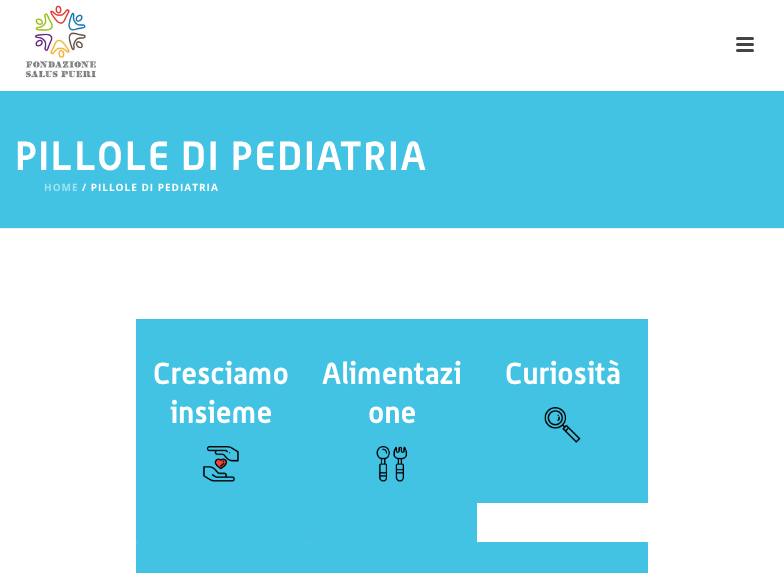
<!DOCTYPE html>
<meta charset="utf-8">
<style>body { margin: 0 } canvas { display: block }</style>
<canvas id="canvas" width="784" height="573"></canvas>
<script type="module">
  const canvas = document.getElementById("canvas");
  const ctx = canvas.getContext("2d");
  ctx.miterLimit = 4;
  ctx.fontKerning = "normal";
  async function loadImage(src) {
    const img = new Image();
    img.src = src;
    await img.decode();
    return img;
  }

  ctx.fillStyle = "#ffffff";
  ctx.fillRect(0, 0, 784, 573);
  ctx.fillStyle = "#42c3e3";
  ctx.fillRect(0, 91, 784, 137);
  ctx.fillStyle = "#ededed";
  ctx.fillRect(0, 228, 784, 1);
  ctx.drawImage(await loadImage("img1.png"), 25, 5, 71, 73);
  ctx.fillStyle = "#444444";
  ctx.beginPath();
  ctx.roundRect(736, 37, 18, 3, 1.5);
  ctx.fill();
  ctx.beginPath();
  ctx.roundRect(736, 43, 18, 3, 1.5);
  ctx.fill();
  ctx.beginPath();
  ctx.roundRect(736, 49, 18, 3, 1.5);
  ctx.fill();
  ctx.letterSpacing = "2px";
  ctx.font = "bold 40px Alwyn";
  ctx.fillStyle = "#ffffff";
  ctx.fillText("PILLOLE DI PEDIATRIA", 15, 170);
  ctx.letterSpacing = "1px";
  ctx.font = "bold 10px Open Sans";
  ctx.fillStyle = "#a1e1f1";
  ctx.fillText("HOME", 44, 191);
  ctx.fillStyle = "#ffffff";
  ctx.fillText("/ PILLOLE DI PEDIATRIA", 82, 191);
  ctx.fillStyle = "#42c3e3";
  ctx.fillRect(136, 319, 341, 223);
  ctx.letterSpacing = "0px";
  ctx.font = "bold 30px Alwyn";
  ctx.fillStyle = "#ffffff";
  ctx.fillText("Cresciamo", 153, 384);
  ctx.fillText("insieme", 170, 423);
  ctx.drawImage(await loadImage("img2.png"), 202, 446, 37, 36);
  ctx.fillText("Alimentazi", 322, 384);
  ctx.fillText("one", 368, 423);
  ctx.drawImage(await loadImage("img3.png"), 376, 446, 32, 36);
  ctx.fillStyle = "#42c3e3";
  ctx.fillRect(477, 319, 171, 184);
  ctx.fillStyle = "#ffffff";
  ctx.fillText("Curiosità", 505, 384);
  ctx.drawImage(await loadImage("img4.png"), 544, 407, 37, 36);
  ctx.fillStyle = "#42c3e3";
  ctx.beginPath();
  ctx.roundRect(136, 542, 171, 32, 1);
  ctx.fill();
  ctx.fillRect(307, 542, 170, 31);
  ctx.beginPath();
  ctx.roundRect(477, 542, 171, 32, 1);
  ctx.fill();
</script>
